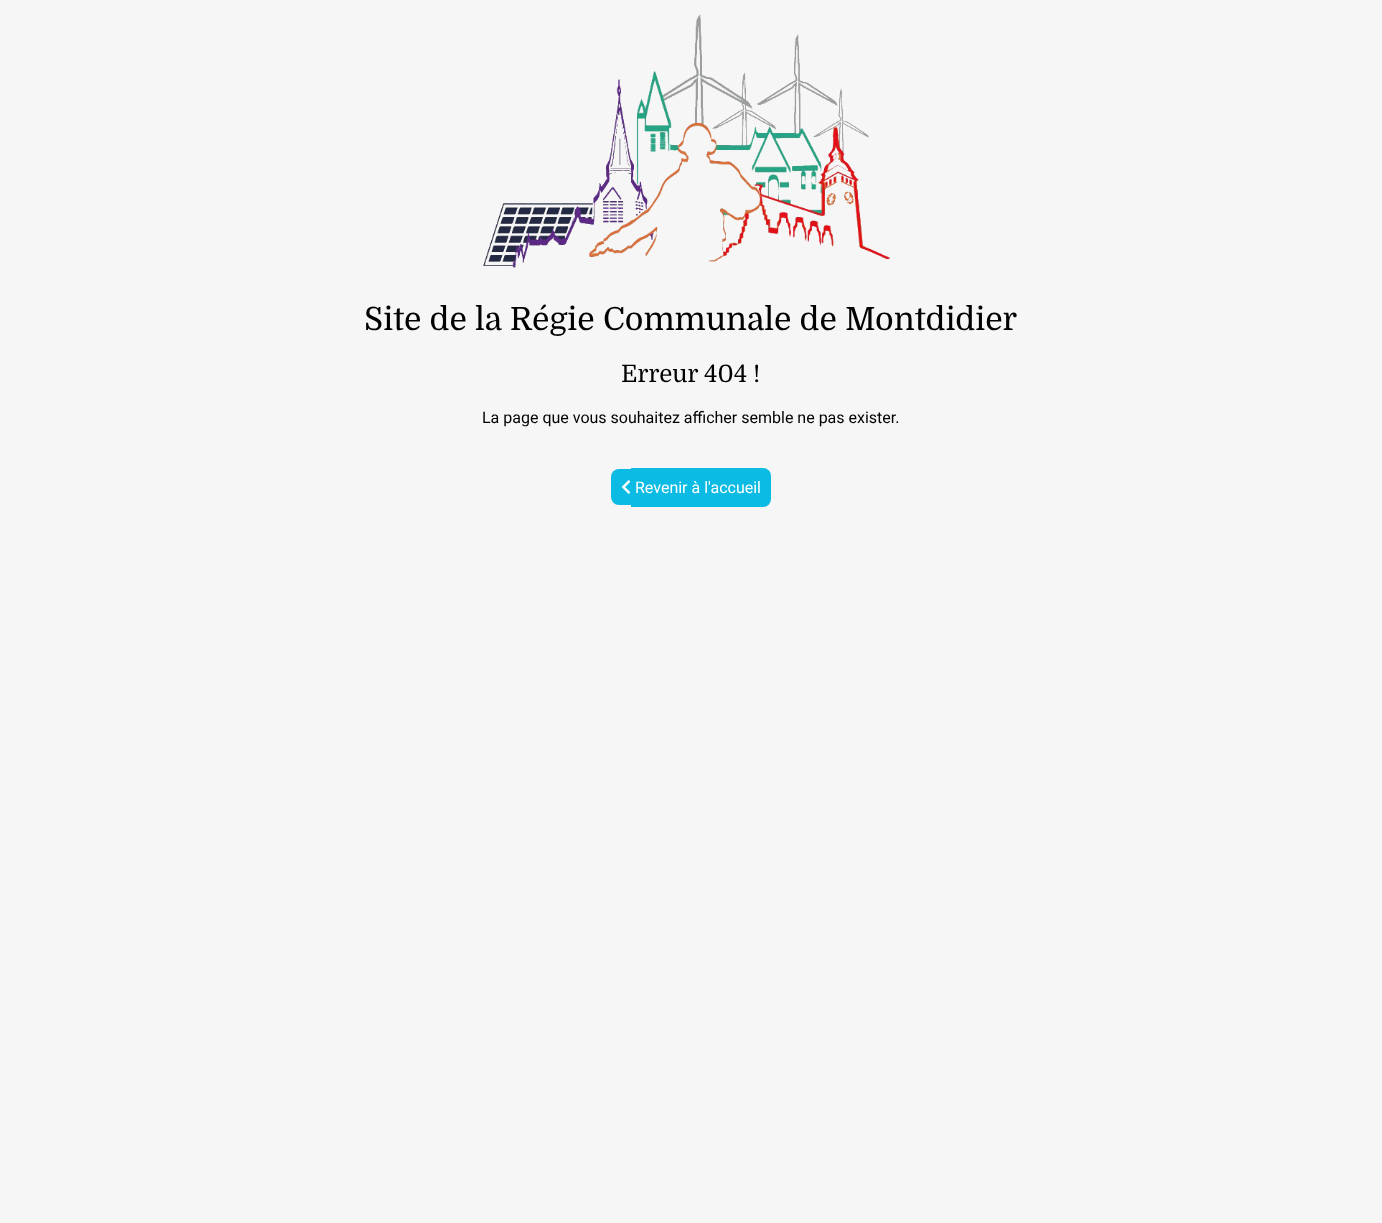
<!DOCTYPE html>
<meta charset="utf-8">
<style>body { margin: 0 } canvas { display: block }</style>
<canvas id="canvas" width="1382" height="1223"></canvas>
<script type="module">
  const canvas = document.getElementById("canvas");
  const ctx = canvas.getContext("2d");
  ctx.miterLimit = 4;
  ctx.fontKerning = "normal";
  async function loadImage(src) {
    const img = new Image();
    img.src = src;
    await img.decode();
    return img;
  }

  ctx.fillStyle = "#f6f6f6";
  ctx.fillRect(0, 0, 1382, 1223);
  ctx.drawImage(await loadImage("img1.png"), 483, 14, 408, 254);
  ctx.font = "32px Domine";
  ctx.fillStyle = "#000000";
  ctx.fillText("Site de la Régie Communale de Montdidier", 364, 330);
  ctx.font = "24px Domine";
  ctx.fillText("Erreur 404 !", 621, 382);
  ctx.font = "16px Roboto";
  ctx.fillText("La page que vous souhaitez afficher semble ne pas exister.", 482, 423);
  ctx.fillStyle = "#0cbbe3";
  ctx.beginPath();
  ctx.roundRect(611, 469, 20, 36, [8, 0, 0, 8]);
  ctx.fill();
  ctx.beginPath();
  ctx.roundRect(631, 468, 140, 39, [0, 8, 8, 0]);
  ctx.fill();
  ctx.drawImage(await loadImage("img2.png"), 621, 480, 10, 14);
  ctx.fillStyle = "#ffffff";
  ctx.fillText("Revenir à l'accueil", 635, 493);
</script>
